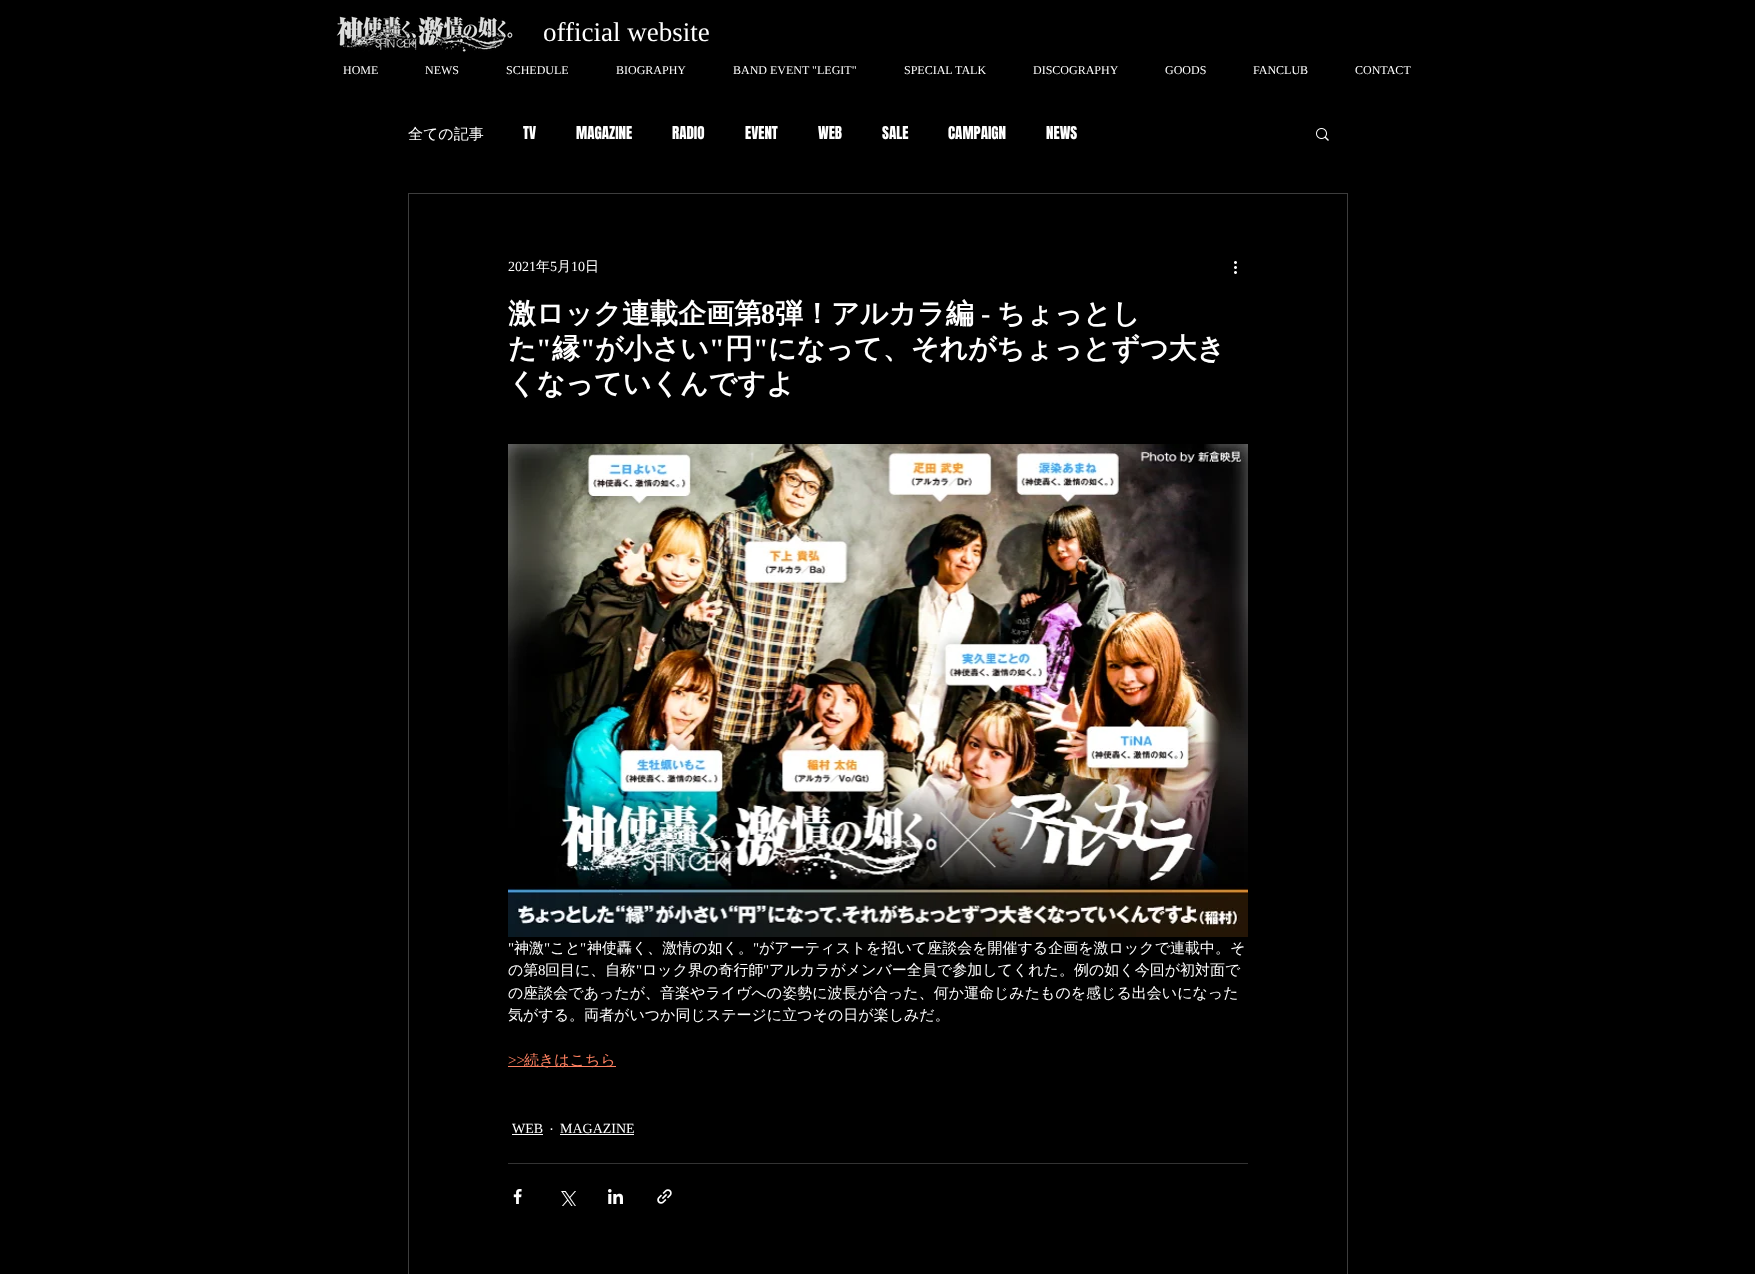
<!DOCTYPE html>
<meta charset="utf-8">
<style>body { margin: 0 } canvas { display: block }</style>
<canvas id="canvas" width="1755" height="1274"></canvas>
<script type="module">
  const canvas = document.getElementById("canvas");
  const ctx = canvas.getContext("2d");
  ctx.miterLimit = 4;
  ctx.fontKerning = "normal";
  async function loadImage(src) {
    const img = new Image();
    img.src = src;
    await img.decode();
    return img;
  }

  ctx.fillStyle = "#000000";
  ctx.fillRect(0, 0, 1755, 1274);
  ctx.drawImage(await loadImage("img1.png"), 336, 16, 177, 36);
  ctx.font = "27px Liberation Serif";
  ctx.fillStyle = "#ffffff";
  ctx.fillText("official website", 543, 41);
  ctx.font = "12px Liberation Serif";
  ctx.fillText("HOME", 343, 74);
  ctx.fillText("NEWS", 425, 74);
  ctx.fillText("SCHEDULE", 506, 74);
  ctx.fillText("BIOGRAPHY", 616, 74);
  ctx.fillText("BAND EVENT \"LEGIT\"", 733, 74);
  ctx.fillText("SPECIAL TALK", 904, 74);
  ctx.fillText("DISCOGRAPHY", 1033, 74);
  ctx.fillText("GOODS", 1165, 74);
  ctx.fillText("FANCLUB", 1253, 74);
  ctx.fillText("CONTACT", 1355, 74);
  ctx.font = "500 15px WenQuanYi Zen Hei";
  ctx.fillText("全ての記事", 408, 139);
  ctx.font = "15px Anton";
  ctx.fillText("TV", 523, 139);
  ctx.fillText("MAGAZINE", 576, 139);
  ctx.fillText("RADIO", 672, 139);
  ctx.fillText("EVENT", 745, 139);
  ctx.fillText("WEB", 818, 139);
  ctx.fillText("SALE", 882, 139);
  ctx.fillText("CAMPAIGN", 948, 139);
  ctx.fillText("NEWS", 1046, 139);
  ctx.drawImage(await loadImage("img2.png"), 1316, 128, 13, 13);
  ctx.strokeStyle = "#3d3d3d";
  ctx.strokeRect(408.5, 193.5, 939, 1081);
  ctx.font = "14px Liberation Serif";
  ctx.fillText("2021", 508, 271);
  ctx.font = "500 14px WenQuanYi Zen Hei";
  ctx.fillText("年", 536, 271);
  ctx.font = "14px Liberation Serif";
  ctx.fillText("5", 550, 271);
  ctx.font = "500 14px WenQuanYi Zen Hei";
  ctx.fillText("月", 557, 271);
  ctx.font = "14px Liberation Serif";
  ctx.fillText("10", 571, 271);
  ctx.font = "500 14px WenQuanYi Zen Hei";
  ctx.fillText("日", 585, 271);
  ctx.drawImage(await loadImage("img3.png"), 1234, 261, 3, 13);
  ctx.font = "bold 28px WenQuanYi Zen Hei";
  ctx.fillText("激ロック連載企画第", 508, 323);
  ctx.font = "bold 28px Liberation Serif";
  ctx.fillText("8", 761, 323);
  ctx.font = "bold 28px WenQuanYi Zen Hei";
  ctx.fillText("弾！アルカラ編", 775, 323);
  ctx.font = "bold 28px Liberation Serif";
  ctx.fillText("-", 981, 323);
  ctx.font = "bold 28px WenQuanYi Zen Hei";
  ctx.fillText("ちょっとし", 997, 323);
  ctx.fillText("た", 508, 358);
  ctx.font = "bold 28px Liberation Serif";
  ctx.fillText("\"", 536, 358);
  ctx.font = "bold 28px WenQuanYi Zen Hei";
  ctx.fillText("縁", 552, 358);
  ctx.font = "bold 28px Liberation Serif";
  ctx.fillText("\"", 580, 358);
  ctx.font = "bold 28px WenQuanYi Zen Hei";
  ctx.fillText("が小さい", 595, 358);
  ctx.font = "bold 28px Liberation Serif";
  ctx.fillText("\"", 709, 358);
  ctx.font = "bold 28px WenQuanYi Zen Hei";
  ctx.fillText("円", 725, 358);
  ctx.font = "bold 28px Liberation Serif";
  ctx.fillText("\"", 753, 358);
  ctx.font = "bold 28px WenQuanYi Zen Hei";
  ctx.fillText("になって、それがちょっとずつ大き", 768, 358);
  ctx.fillText("くなっていくんですよ", 508, 393);
  ctx.drawImage(await loadImage("img4.png"), 508, 444, 740, 493);
  ctx.font = "15px Liberation Serif";
  ctx.fillText("\"", 508, 953);
  ctx.font = "500 15px WenQuanYi Zen Hei";
  ctx.fillText("神激", 514, 953);
  ctx.font = "15px Liberation Serif";
  ctx.fillText("\"", 544, 953);
  ctx.font = "500 15px WenQuanYi Zen Hei";
  ctx.fillText("こと", 550, 953);
  ctx.font = "15px Liberation Serif";
  ctx.fillText("\"", 580, 953);
  ctx.font = "500 15px WenQuanYi Zen Hei";
  ctx.fillText("神使轟く、激情の如く。", 587, 953);
  ctx.font = "15px Liberation Serif";
  ctx.fillText("\"", 753, 953);
  ctx.font = "500 15px WenQuanYi Zen Hei";
  ctx.fillText("がアーティストを招いて座談会を開催する企画を激ロックで連載中。そ", 759, 953);
  ctx.fillText("の第", 508, 975);
  ctx.font = "15px Liberation Serif";
  ctx.fillText("8", 538, 975);
  ctx.font = "500 15px WenQuanYi Zen Hei";
  ctx.fillText("回目に、自称", 545, 975);
  ctx.font = "15px Liberation Serif";
  ctx.fillText("\"", 636, 975);
  ctx.font = "500 15px WenQuanYi Zen Hei";
  ctx.fillText("ロック界の奇行師", 642, 975);
  ctx.font = "15px Liberation Serif";
  ctx.fillText("\"", 763, 975);
  ctx.font = "500 15px WenQuanYi Zen Hei";
  ctx.fillText("アルカラがメンバー全員で参加してくれた。例の如く今回が初対面で", 769, 975);
  ctx.fillText("の座談会であったが、音楽やライヴへの姿勢に波長が合った、何か運命じみたものを感じる出会いになった", 508, 998);
  ctx.fillText("気がする。両者がいつか同じステージに立つその日が楽しみだ。", 508, 1020);
  ctx.font = "15px Liberation Serif";
  ctx.fillStyle = "#ff8161";
  ctx.fillText(">>", 508, 1065);
  ctx.fillRect(508, 1066, 108, 1);
  ctx.font = "500 15px WenQuanYi Zen Hei";
  ctx.fillText("続きはこちら", 524, 1065);
  ctx.font = "14px Liberation Serif";
  ctx.fillStyle = "#ffffff";
  ctx.fillText("WEB", 512, 1133);
  ctx.fillRect(512, 1134, 31, 1);
  ctx.font = "15px Liberation Serif";
  ctx.fillText("·", 549, 1134);
  ctx.font = "14px Liberation Serif";
  ctx.fillText("MAGAZINE", 560, 1133);
  ctx.fillRect(560, 1134, 74, 1);
  ctx.fillStyle = "#333333";
  ctx.fillRect(508, 1163, 740, 1);
  ctx.drawImage(await loadImage("img5.png"), 513, 1189, 9, 15);
  ctx.drawImage(await loadImage("img6.png"), 561, 1191, 15, 15);
  ctx.drawImage(await loadImage("img7.png"), 608, 1189, 15, 15);
  ctx.drawImage(await loadImage("img8.png"), 657, 1189, 15, 15);
</script>
